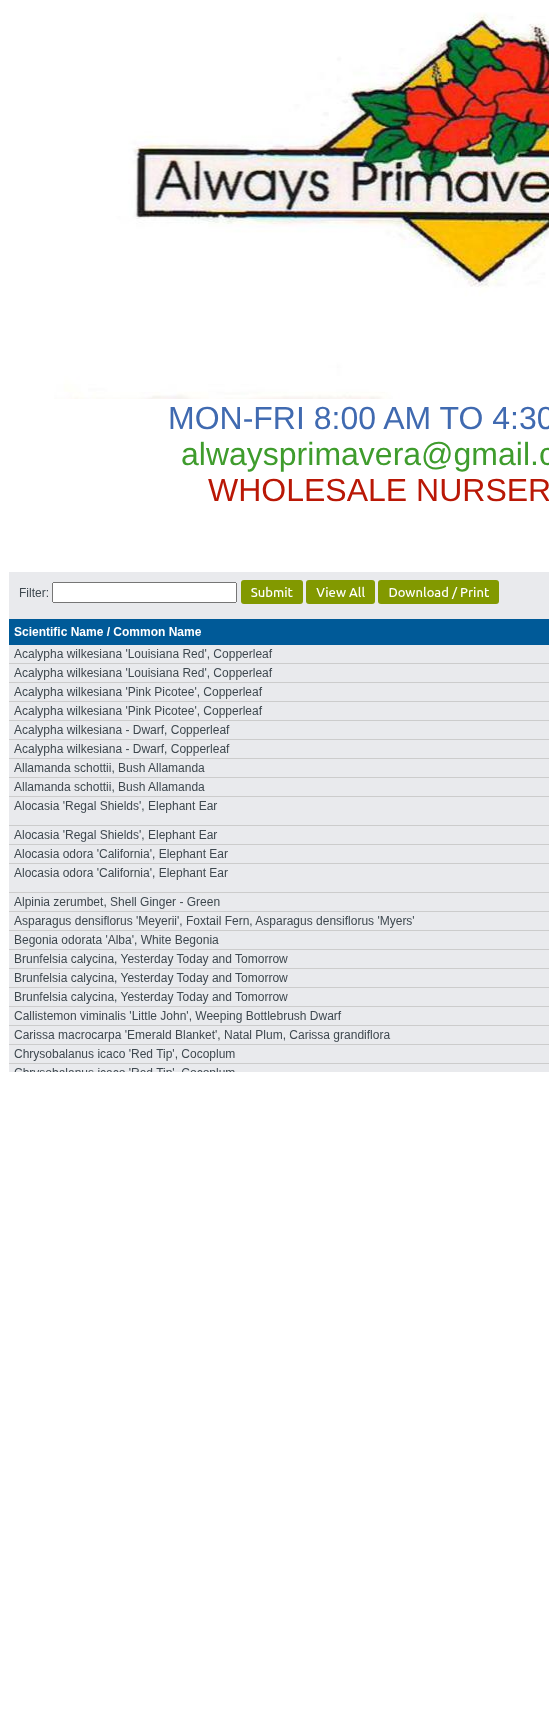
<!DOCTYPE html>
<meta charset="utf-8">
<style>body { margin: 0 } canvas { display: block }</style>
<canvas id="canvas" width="549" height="1723"></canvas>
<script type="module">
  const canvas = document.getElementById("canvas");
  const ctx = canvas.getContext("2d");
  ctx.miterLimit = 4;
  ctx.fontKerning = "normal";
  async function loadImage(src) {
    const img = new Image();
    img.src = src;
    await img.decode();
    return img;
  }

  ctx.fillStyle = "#ffffff";
  ctx.fillRect(0, 0, 549, 1723);
  ctx.drawImage(await loadImage("img1.png"), 54, 12, 495, 387);
  ctx.font = "32px Liberation Sans";
  ctx.fillStyle = "#406ab0";
  ctx.fillText("MON-FRI 8:00 AM TO 4:30", 168, 429);
  ctx.fillStyle = "#3f9c2d";
  ctx.fillText("alwaysprimavera@gmail.c", 181, 465);
  ctx.fillStyle = "#b91806";
  ctx.fillText("WHOLESALE NURSER", 208, 501);
  ctx.drawImage(await loadImage("img2.png"), 9, 572, 540, 500);
</script>
